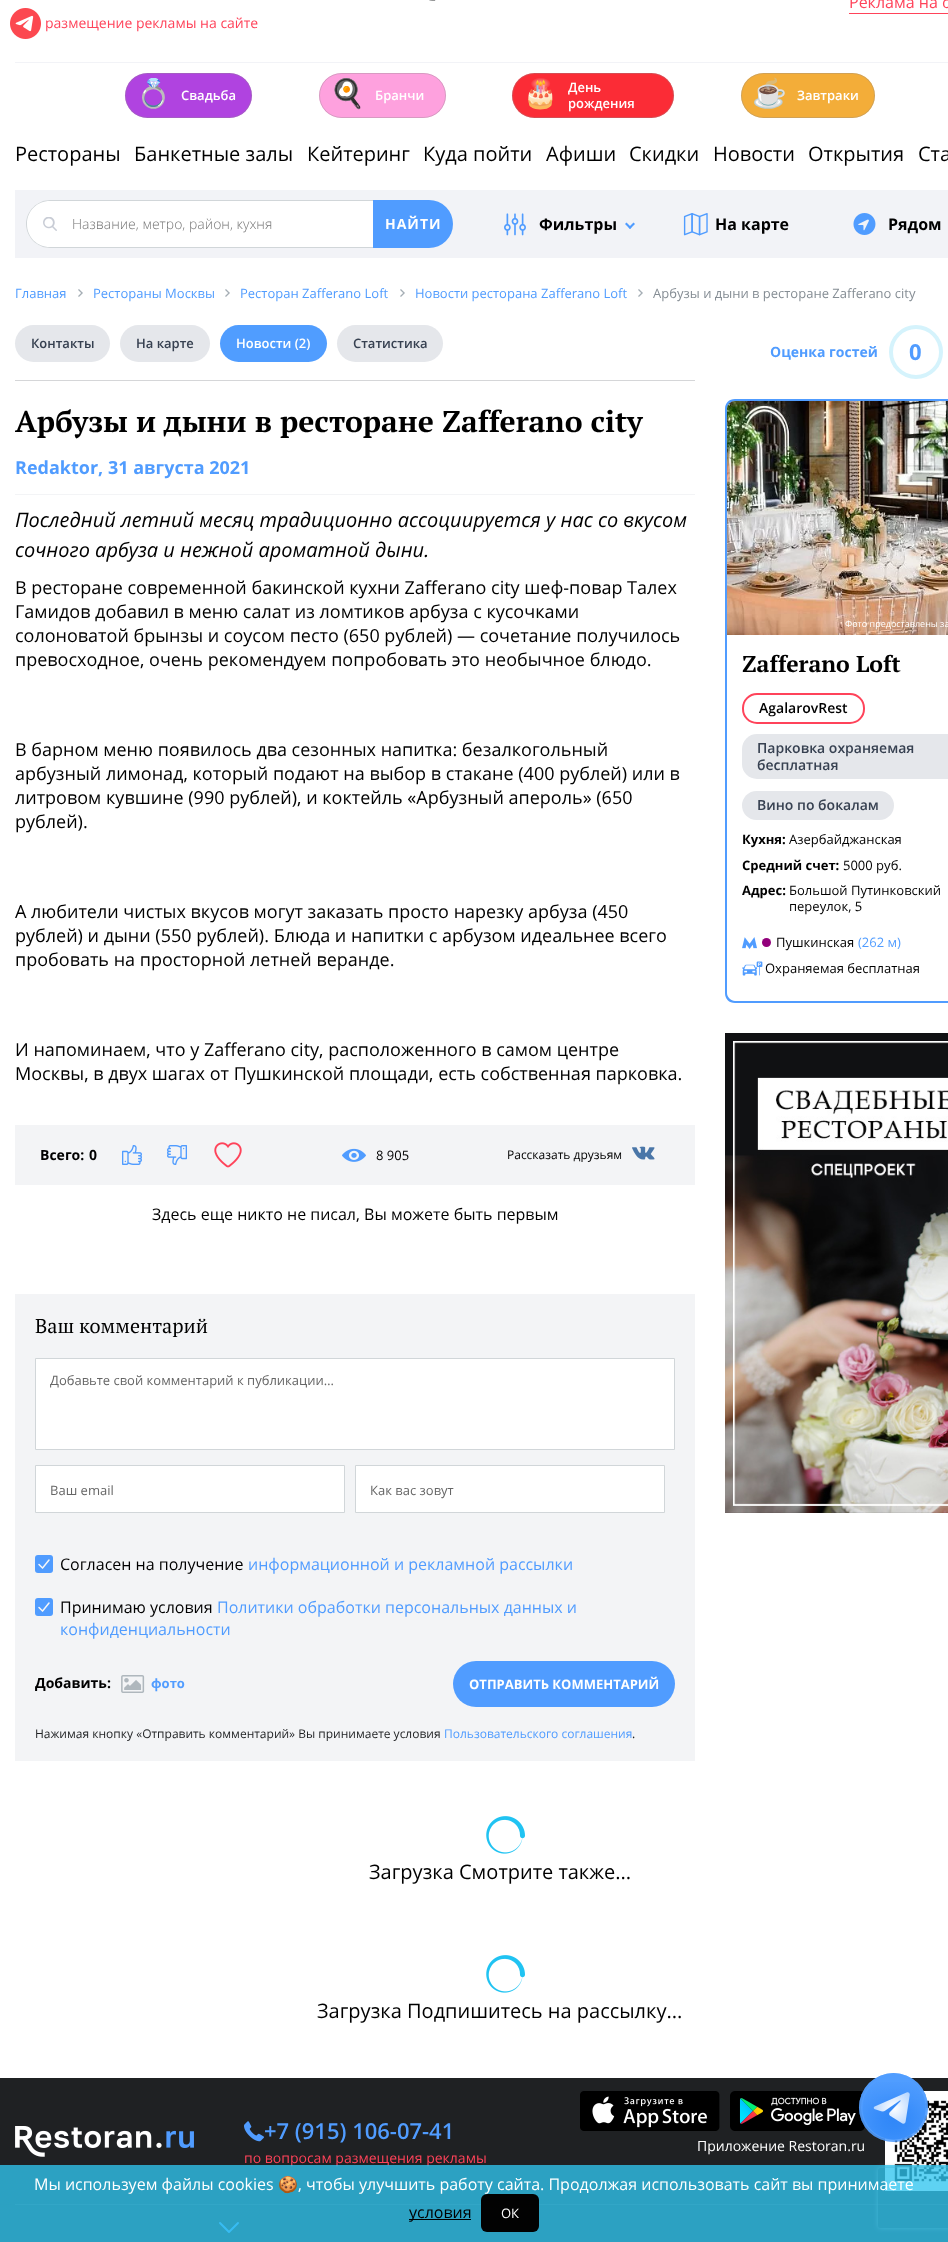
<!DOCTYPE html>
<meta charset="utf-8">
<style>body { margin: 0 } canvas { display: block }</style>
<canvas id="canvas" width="948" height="2242"></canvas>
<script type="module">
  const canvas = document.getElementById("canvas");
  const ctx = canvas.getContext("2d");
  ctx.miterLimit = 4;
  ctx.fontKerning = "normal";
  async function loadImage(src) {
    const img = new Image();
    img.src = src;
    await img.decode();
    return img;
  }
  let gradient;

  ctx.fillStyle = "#ffffff";
  ctx.fillRect(0, 0, 948, 2242);
  ctx.fillStyle = "#f2f3f7";
  ctx.fillRect(15, 62, 933, 1);
  ctx.drawImage(await loadImage("img1.png"), 429, 0, 7, 1);
  ctx.fillStyle = "#ff435a";
  ctx.fillRect(849, 13, 99, 1);
  ctx.font = "16px Open Sans";
  ctx.fillText("Реклама на с", 849, 8);
  ctx.drawImage(await loadImage("img2.png"), 10, 8, 31, 31);
  ctx.font = "14px Open Sans";
  ctx.fillText("размещение рекламы на сайте", 45, 28);
  ctx.fillStyle = "#b043e0";
  ctx.beginPath();
  ctx.roundRect(125, 73, 127, 45, 22.5);
  ctx.fill();
  ctx.beginPath();
  ctx.roundRect(125.5, 73.5, 126, 44, 22);
  ctx.strokeStyle = "rgba(142, 140, 140, 0.35)";
  ctx.stroke();
  ctx.font = "28px Noto Color Emoji";
  ctx.fillStyle = "#ffffff";
  ctx.fillText("💍", 136, 103);
  ctx.font = "600 13px Open Sans";
  ctx.fillText("Свадьба", 181, 100);
  ctx.fillStyle = "#fea1de";
  ctx.beginPath();
  ctx.roundRect(319, 73, 127, 45, 22.5);
  ctx.fill();
  ctx.beginPath();
  ctx.roundRect(319.5, 73.5, 126, 44, 22);
  ctx.stroke();
  ctx.font = "28px Noto Color Emoji";
  ctx.fillStyle = "#ffffff";
  ctx.fillText("🍳", 330, 103);
  ctx.font = "600 13px Open Sans";
  ctx.fillText("Бранчи", 375, 100);
  ctx.fillStyle = "#fb2c36";
  ctx.beginPath();
  ctx.roundRect(512, 73, 162, 45, 22.5);
  ctx.fill();
  ctx.beginPath();
  ctx.roundRect(512.5, 73.5, 161, 44, 22);
  ctx.stroke();
  ctx.font = "28px Noto Color Emoji";
  ctx.fillStyle = "#ffffff";
  ctx.fillText("🎂", 523, 103);
  ctx.font = "600 13px Open Sans";
  ctx.fillText("День", 568, 92);
  ctx.fillText("рождения", 568, 108);
  ctx.fillStyle = "#f3ad39";
  ctx.beginPath();
  ctx.roundRect(741, 73, 134, 45, 22.5);
  ctx.fill();
  ctx.beginPath();
  ctx.roundRect(741.5, 73.5, 133, 44, 22);
  ctx.stroke();
  ctx.fillStyle = "#ffffff";
  ctx.fillText("Завтраки", 797, 100);
  ctx.font = "28px Noto Color Emoji";
  ctx.fillText("☕️", 752, 103);
  ctx.font = "20px Open Sans";
  ctx.fillStyle = "#000000";
  ctx.fillText("Рестораны", 15, 161);
  ctx.fillText("Банкетные залы", 134, 161);
  ctx.fillText("Кейтеринг", 307, 161);
  ctx.fillText("Куда пойти", 423, 161);
  ctx.fillText("Афиши", 546, 161);
  ctx.fillText("Скидки", 629, 161);
  ctx.fillText("Новости", 713, 161);
  ctx.fillText("Открытия", 808, 161);
  ctx.fillText("Ста", 918, 161);
  ctx.fillStyle = "#f2f3f7";
  ctx.fillRect(15, 190, 933, 68);
  ctx.fillStyle = "#ffffff";
  ctx.beginPath();
  ctx.roundRect(26, 200, 347, 48, [24, 0, 0, 24]);
  ctx.fill();
  ctx.drawImage(await loadImage("img3.png"), 43, 217, 14, 14);
  ctx.fillStyle = "#d1d6d9";
  ctx.beginPath();
  ctx.moveTo(50, 200);
  ctx.lineTo(373, 200);
  ctx.lineTo(373, 248);
  ctx.lineTo(50, 248);
  ctx.bezierCurveTo(37, 248, 26, 237, 26, 224);
  ctx.bezierCurveTo(26, 211, 37, 200, 50, 200);
  ctx.closePath();
  ctx.moveTo(50, 201);
  ctx.lineTo(373, 201);
  ctx.lineTo(373, 247);
  ctx.lineTo(50, 247);
  ctx.bezierCurveTo(37, 247, 27, 237, 27, 224);
  ctx.bezierCurveTo(27, 211, 37, 201, 50, 201);
  ctx.closePath();
  ctx.fill("evenodd");
  ctx.font = "300 14px Open Sans";
  ctx.fillStyle = "#757575";
  ctx.fillText("Название, метро, район, кухня", 72, 229);
  ctx.fillStyle = "#509cff";
  ctx.beginPath();
  ctx.roundRect(373, 200, 80, 48, [0, 24, 24, 0]);
  ctx.fill();
  ctx.letterSpacing = "1px";
  ctx.font = "bold 14px Open Sans";
  ctx.fillStyle = "#ffffff";
  ctx.fillText("НАЙТИ", 385, 229);
  ctx.drawImage(await loadImage("img4.png"), 504, 213, 22, 23);
  ctx.letterSpacing = "0px";
  ctx.font = "bold 16px Open Sans";
  ctx.fillStyle = "#000000";
  ctx.fillText("Фильтры", 539, 230);
  ctx.fillStyle = "#509cff";
  ctx.beginPath();
  ctx.moveTo(633.5, 222.5);
  ctx.lineTo(635, 224);
  ctx.lineTo(630, 229);
  ctx.lineTo(628.5, 227.5);
  ctx.closePath();
  ctx.fill();
  ctx.beginPath();
  ctx.moveTo(626.5, 222.5);
  ctx.lineTo(631.5, 227.5);
  ctx.lineTo(630, 229);
  ctx.lineTo(625, 224);
  ctx.closePath();
  ctx.fill();
  ctx.drawImage(await loadImage("img5.png"), 683, 213, 25, 23);
  ctx.fillStyle = "#000000";
  ctx.fillText("На карте", 715, 230);
  ctx.drawImage(await loadImage("img6.png"), 853, 213, 23, 22);
  ctx.fillText("Рядом", 888, 230);
  ctx.drawImage(await loadImage("img7.png"), 78, 289, 5, 8);
  ctx.font = "13px Open Sans";
  ctx.fillStyle = "#509cff";
  ctx.fillText("Главная", 15, 298);
  ctx.drawImage(await loadImage("img7.png"), 225, 289, 5, 8);
  ctx.fillText("Рестораны Москвы", 93, 298);
  ctx.drawImage(await loadImage("img7.png"), 400, 289, 5, 8);
  ctx.fillText("Ресторан Zafferano Loft", 240, 298);
  ctx.drawImage(await loadImage("img7.png"), 638, 289, 5, 8);
  ctx.fillText("Новости ресторана Zafferano Loft", 415, 298);
  ctx.fillStyle = "#858d94";
  ctx.fillText("Арбузы и дыни в ресторане Zafferano city", 653, 298);
  ctx.fillStyle = "#d5d6d8";
  ctx.fillRect(15, 380, 680, 1);
  ctx.fillStyle = "#e5e7eb";
  ctx.beginPath();
  ctx.roundRect(15, 325, 95, 37, 18.5);
  ctx.fill();
  ctx.font = "600 13px Open Sans";
  ctx.fillStyle = "#374151";
  ctx.fillText("Контакты", 31, 348);
  ctx.fillStyle = "#e5e7eb";
  ctx.beginPath();
  ctx.roundRect(120, 325, 90, 37, 18.5);
  ctx.fill();
  ctx.fillStyle = "#374151";
  ctx.fillText("На карте", 136, 348);
  ctx.fillStyle = "#509dff";
  ctx.beginPath();
  ctx.roundRect(220, 325, 107, 37, 18.5);
  ctx.fill();
  ctx.fillStyle = "#ffffff";
  ctx.fillText("Новости (2)", 236, 348);
  ctx.fillStyle = "#e5e7eb";
  ctx.beginPath();
  ctx.roundRect(337, 325, 106, 37, 18.5);
  ctx.fill();
  ctx.fillStyle = "#374151";
  ctx.fillText("Статистика", 353, 348);
  ctx.font = "bold 30px PT Serif";
  ctx.fillStyle = "#000000";
  ctx.fillText("Арбузы и дыни в ресторане Zafferano city", 15, 432);
  ctx.fillStyle = "#f3f4f6";
  ctx.fillRect(15, 494, 680, 1);
  ctx.font = "bold 18px Open Sans";
  ctx.fillStyle = "#509cff";
  ctx.fillText("Redaktor, 31 августа 2021", 15, 474);
  ctx.font = "italic 20px Open Sans";
  ctx.fillStyle = "#000000";
  ctx.fillText("Последний летний месяц традиционно ассоциируется у нас со вкусом", 15, 527);
  ctx.fillText("сочного арбуза и нежной ароматной дыни.", 15, 557);
  ctx.font = "18px Open Sans";
  ctx.fillText("В ресторане современной бакинской кухни Zafferano city шеф-повар Талех", 15, 594);
  ctx.fillText("Гамидов добавил в меню салат из ломтиков арбуза с кусочками", 15, 618);
  ctx.fillText("солоноватой брынзы и соусом песто (650 рублей) — сочетание получилось", 15, 642);
  ctx.fillText("превосходное, очень рекомендуем попробовать это необычное блюдо.", 15, 666);
  ctx.fillText("В барном меню появилось два сезонных напитка: безалкогольный", 15, 756);
  ctx.fillText("арбузный лимонад, который подают на выбор в стакане (400 рублей) или в", 15, 780);
  ctx.fillText("литровом кувшине (990 рублей), и коктейль «Арбузный апероль» (650", 15, 804);
  ctx.fillText("рублей).", 15, 828);
  ctx.fillText("А любители чистых вкусов могут заказать просто нарезку арбуза (450", 15, 918);
  ctx.fillText("рублей) и дыни (550 рублей). Блюда и напитки с арбузом идеальнее всего", 15, 942);
  ctx.fillText("пробовать на просторной летней веранде.", 15, 966);
  ctx.fillText("И напоминаем, что у Zafferano city, расположенного в самом центре", 15, 1056);
  ctx.fillText("Москвы, в двух шагах от Пушкинской площади, есть собственная парковка.", 15, 1080);
  ctx.fillStyle = "#f3f4f6";
  ctx.fillRect(15, 1125, 680, 60);
  ctx.font = "bold 14px Open Sans";
  ctx.fillStyle = "#000000";
  ctx.fillText("Всего:", 40, 1160);
  ctx.fillText("0", 89, 1160);
  ctx.drawImage(await loadImage("img8.png"), 122, 1145, 20, 20);
  ctx.drawImage(await loadImage("img9.png"), 167, 1145, 20, 20);
  ctx.drawImage(await loadImage("img10.png"), 214, 1142, 28, 26);
  ctx.drawImage(await loadImage("img11.png"), 342, 1148, 24, 14);
  ctx.font = "13px Open Sans";
  ctx.fillText("8 905", 376, 1160);
  ctx.font = "12px Open Sans";
  ctx.fillText("Рассказать друзьям", 507, 1159);
  ctx.drawImage(await loadImage("img12.png"), 632, 1146, 23, 14);
  ctx.font = "16px Open Sans";
  ctx.fillText("Здесь еще никто не писал, Вы можете быть первым", 152, 1220);
  ctx.fillStyle = "#f3f4f6";
  ctx.fillRect(15, 1294, 680, 467);
  ctx.font = "20px PT Serif";
  ctx.fillStyle = "#000000";
  ctx.fillText("Ваш комментарий", 35, 1333);
  ctx.fillStyle = "#ffffff";
  ctx.beginPath();
  ctx.rect(35.5, 1358.5, 639, 91);
  ctx.fill();
  ctx.strokeStyle = "#d1d6d9";
  ctx.stroke();
  ctx.font = "13px Open Sans";
  ctx.fillStyle = "#666666";
  ctx.fillText("Добавьте свой комментарий к публикации…", 50, 1385);
  ctx.fillStyle = "#ffffff";
  ctx.beginPath();
  ctx.rect(35.5, 1465.5, 309, 47);
  ctx.fill();
  ctx.stroke();
  ctx.fillStyle = "#666666";
  ctx.fillText("Ваш email", 50, 1495);
  ctx.fillStyle = "#ffffff";
  ctx.beginPath();
  ctx.rect(355.5, 1465.5, 309, 47);
  ctx.fill();
  ctx.stroke();
  ctx.fillStyle = "#666666";
  ctx.fillText("Как вас зовут", 370, 1495);
  ctx.fillStyle = "#509cff";
  ctx.beginPath();
  ctx.roundRect(35, 1555, 18, 18, 3);
  ctx.fill();
  ctx.beginPath();
  ctx.moveTo(39, 1564.5);
  ctx.lineTo(42.5, 1568);
  ctx.lineTo(43, 1567.5);
  ctx.lineTo(49, 1560);
  ctx.strokeStyle = "#f7f7f7";
  ctx.lineWidth = 1.5;
  ctx.lineCap = "round";
  ctx.stroke();
  ctx.font = "16px Open Sans";
  ctx.fillStyle = "#000000";
  ctx.fillText("Согласен на получение", 60, 1570);
  ctx.fillStyle = "#509cff";
  ctx.fillText("информационной и рекламной рассылки", 248, 1570);
  ctx.beginPath();
  ctx.roundRect(35, 1598, 18, 18, 3);
  ctx.fill();
  ctx.beginPath();
  ctx.moveTo(39, 1607.5);
  ctx.lineTo(42.5, 1611);
  ctx.lineTo(43, 1610.5);
  ctx.lineTo(49, 1603);
  ctx.stroke();
  ctx.fillStyle = "#000000";
  ctx.fillText("Принимаю условия", 60, 1613);
  ctx.fillStyle = "#509cff";
  ctx.fillText("Политики обработки персональных данных и", 217, 1613);
  ctx.fillText("конфиденциальности", 60, 1635);
  ctx.font = "bold 14px Open Sans";
  ctx.fillStyle = "#000000";
  ctx.fillText("Добавить:", 35, 1688);
  ctx.drawImage(await loadImage("img13.png"), 121, 1675, 24, 18);
  ctx.font = "bold 13px Open Sans";
  ctx.fillStyle = "#509cff";
  ctx.fillText("фото", 151, 1688);
  ctx.beginPath();
  ctx.roundRect(453, 1661, 222, 46, 23);
  ctx.fill();
  ctx.fillStyle = "#ffffff";
  ctx.fillText("ОТПРАВИТЬ КОММЕНТАРИЙ", 469, 1689);
  ctx.font = "12px Open Sans";
  ctx.fillStyle = "#1f2123";
  ctx.fillText("Нажимая кнопку «Отправить комментарий» Вы принимаете условия", 35, 1738);
  ctx.fillStyle = "#509cff";
  ctx.fillText("Пользовательского соглашения", 444, 1738);
  ctx.fillStyle = "#1f2123";
  ctx.fillText(".", 632, 1738);
  ctx.font = "bold 14px Open Sans";
  ctx.fillStyle = "#509cff";
  ctx.fillText("Оценка гостей", 770, 357);
  ctx.beginPath();
  ctx.arc(916, 352, 25, 0, Math.PI * 2);
  ctx.strokeStyle = "#d5f3fc";
  ctx.lineWidth = 4;
  ctx.stroke();
  ctx.font = "bold 22px Open Sans";
  ctx.fillText("0", 909, 360);
  ctx.beginPath();
  ctx.moveTo(735, 399);
  ctx.lineTo(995, 399);
  ctx.bezierCurveTo(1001, 399, 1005, 403, 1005, 409);
  ctx.lineTo(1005, 635);
  ctx.lineTo(725, 635);
  ctx.lineTo(725, 409);
  ctx.bezierCurveTo(725, 403, 729, 399, 735, 399);
  ctx.closePath();
  ctx.moveTo(735, 401);
  ctx.lineTo(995, 401);
  ctx.bezierCurveTo(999, 401, 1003, 405, 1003, 409);
  ctx.lineTo(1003, 635);
  ctx.lineTo(727, 635);
  ctx.lineTo(727, 409);
  ctx.bezierCurveTo(727, 405, 731, 401, 735, 401);
  ctx.closePath();
  ctx.fill("evenodd");
  ctx.drawImage(await loadImage("img14.png"), 727, 401, 221, 234);
  ctx.font = "9px Open Sans";
  ctx.fillStyle = "#ffffff";
  ctx.fillText("Фото предоставлены за", 845, 627);
  ctx.fillStyle = "#509cff";
  ctx.beginPath();
  ctx.moveTo(725, 635);
  ctx.lineTo(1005, 635);
  ctx.lineTo(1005, 993);
  ctx.bezierCurveTo(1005, 999, 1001, 1003, 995, 1003);
  ctx.lineTo(735, 1003);
  ctx.bezierCurveTo(729, 1003, 725, 999, 725, 993);
  ctx.closePath();
  ctx.moveTo(727, 635);
  ctx.lineTo(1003, 635);
  ctx.lineTo(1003, 993);
  ctx.bezierCurveTo(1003, 997, 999, 1001, 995, 1001);
  ctx.lineTo(735, 1001);
  ctx.bezierCurveTo(731, 1001, 727, 997, 727, 993);
  ctx.closePath();
  ctx.fill("evenodd");
  ctx.font = "bold 23px PT Serif";
  ctx.fillStyle = "#000000";
  ctx.fillText("Zafferano Loft", 742, 672);
  ctx.beginPath();
  ctx.roundRect(743, 694, 121, 29, 14);
  ctx.strokeStyle = "#ff435a";
  ctx.lineWidth = 2;
  ctx.stroke();
  ctx.font = "600 14px Open Sans";
  ctx.fillText("AgalarovRest", 759, 713);
  ctx.fillStyle = "#e5e7eb";
  ctx.beginPath();
  ctx.roundRect(742, 734, 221, 45, 15);
  ctx.fill();
  ctx.fillStyle = "#374151";
  ctx.fillText("Парковка охраняемая", 757, 753);
  ctx.fillText("бесплатная", 757, 770);
  ctx.fillStyle = "#e5e7eb";
  ctx.beginPath();
  ctx.roundRect(742, 791, 152, 29, 14.5);
  ctx.fill();
  ctx.fillStyle = "#374151";
  ctx.fillText("Вино по бокалам", 757, 810);
  ctx.font = "bold 13px Open Sans";
  ctx.fillStyle = "#000000";
  ctx.fillText("Кухня:", 742, 844);
  ctx.font = "13px Open Sans";
  ctx.fillText("Азербайджанская", 789, 844);
  ctx.font = "bold 13px Open Sans";
  ctx.fillText("Средний счет:", 742, 870);
  ctx.font = "13px Open Sans";
  ctx.fillText("5000 руб.", 843, 870);
  ctx.font = "bold 13px Open Sans";
  ctx.fillText("Адрес:", 742, 895);
  ctx.font = "13px Open Sans";
  ctx.fillText("Большой Путинковский", 789, 895);
  ctx.fillText("переулок, 5", 789, 911);
  ctx.drawImage(await loadImage("img15.png"), 742, 937, 15, 12);
  ctx.fillStyle = "#92007b";
  ctx.beginPath();
  ctx.arc(766.5, 942.5, 4.5, 0, Math.PI * 2);
  ctx.fill();
  ctx.fillStyle = "#000000";
  ctx.fillText("Пушкинская", 776, 947);
  ctx.fillStyle = "#509cff";
  ctx.fillText("(262 м)", 858, 947);
  ctx.drawImage(await loadImage("img16.png"), 742, 961, 21, 15);
  ctx.fillStyle = "#000000";
  ctx.fillText("Охраняемая бесплатная", 765, 973);
  ctx.drawImage(await loadImage("img17.png"), 725, 1033, 223, 480);
  ctx.drawImage(await loadImage("img18.png"), 486, 1816, 39, 38);
  ctx.font = "20px Open Sans";
  ctx.fillText("Загрузка Смотрите также...", 369, 1879);
  ctx.drawImage(await loadImage("img18.png"), 486, 1955, 39, 38);
  ctx.fillText("Загрузка Подпишитесь на рассылку...", 317, 2018);
  ctx.fillStyle = "#1f2123";
  ctx.fillRect(0, 2078, 948, 164);
  ctx.fillStyle = "#363839";
  ctx.fillRect(15, 2204, 933, 1);
  ctx.drawImage(await loadImage("img19.png"), 15, 2126, 179, 31);
  ctx.drawImage(await loadImage("img20.png"), 244, 2121, 20, 21);
  ctx.font = "600 22px Open Sans";
  ctx.fillStyle = "#509cff";
  ctx.fillText("+7 (915) 106-07-41", 264, 2139);
  ctx.font = "14px Open Sans";
  ctx.fillStyle = "#ff435a";
  ctx.fillText("по вопросам размещения рекламы", 244, 2163);
  ctx.drawImage(await loadImage("img21.png"), 580, 2091, 140, 40);
  ctx.drawImage(await loadImage("img22.png"), 730, 2091, 135, 40);
  ctx.fillStyle = "#ffffff";
  ctx.fillText("Приложение Restoran.ru", 697, 2151);
  ctx.drawImage(await loadImage("img23.png"), 885, 2091, 63, 100);
  ctx.beginPath();
  ctx.moveTo(220, 2223);
  ctx.lineTo(229, 2232);
  ctx.lineTo(238, 2223);
  ctx.strokeStyle = "#509cff";
  ctx.lineWidth = 1.9;
  ctx.lineJoin = "round";
  ctx.stroke();
  gradient = ctx.createLinearGradient(894, 2073, 894, 2142);
  gradient.addColorStop(0, "#509dff");
  gradient.addColorStop(1, "rgba(80, 157, 255, 0.62)");
  ctx.fillStyle = gradient;
  ctx.beginPath();
  ctx.arc(893.5, 2107.5, 34.5, 0, Math.PI * 2);
  ctx.fill();
  ctx.fillStyle = "#509dff";
  ctx.beginPath();
  ctx.arc(893.5, 2107.5, 32.5, 0, Math.PI * 2);
  ctx.fill();
  ctx.drawImage(await loadImage("img24.png"), 862, 2082, 64, 58);
  gradient = ctx.createRadialGradient(894, 2108, 0, 894, 2108, 49);
  gradient.addColorStop(0, "rgba(80, 157, 255, 0)");
  gradient.addColorStop(1, "#509dff");
  ctx.fillStyle = gradient;
  ctx.beginPath();
  ctx.arc(893.5, 2107.5, 34.5, 0, Math.PI * 2);
  ctx.fill();
  ctx.save();
  ctx.beginPath();
  ctx.moveTo(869, 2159);
  ctx.lineTo(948, 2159);
  ctx.lineTo(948, 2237);
  ctx.lineTo(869, 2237);
  ctx.closePath();
  ctx.moveTo(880, 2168);
  ctx.lineTo(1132, 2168);
  ctx.bezierCurveTo(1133, 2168, 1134, 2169, 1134, 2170);
  ctx.lineTo(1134, 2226);
  ctx.bezierCurveTo(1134, 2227, 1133, 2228, 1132, 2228);
  ctx.lineTo(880, 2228);
  ctx.bezierCurveTo(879, 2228, 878, 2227, 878, 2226);
  ctx.lineTo(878, 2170);
  ctx.bezierCurveTo(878, 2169, 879, 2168, 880, 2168);
  ctx.closePath();
  ctx.clip("evenodd");
  ctx.fillStyle = "#808080";
  ctx.filter = "blur(2.5px)";
  ctx.beginPath();
  ctx.roundRect(878, 2168, 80, 60, 2);
  ctx.fill();
  ctx.filter = "none";
  ctx.restore();
  ctx.fillStyle = "rgba(49, 197, 240, 0.78)";
  ctx.fillRect(0, 2165, 948, 77);
  ctx.font = "16px Open Sans";
  ctx.fillStyle = "#ffffff";
  ctx.fillText("Мы используем файлы cookies", 34, 2190);
  ctx.font = "16px 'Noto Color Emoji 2'";
  ctx.fillText("🍪", 278, 2190);
  ctx.font = "16px Open Sans";
  ctx.fillText(", чтобы улучшить работу сайта. Продолжая использовать сайт вы принимаете", 298, 2190);
  ctx.fillStyle = "#000000";
  ctx.fillRect(409, 2219, 62, 1);
  ctx.fillText("условия", 409, 2218);
  ctx.fillStyle = "#020202";
  ctx.beginPath();
  ctx.roundRect(481, 2194, 58, 38, 6);
  ctx.fill();
  ctx.font = "13px Open Sans";
  ctx.fillStyle = "#ffffff";
  ctx.fillText("ОК", 501, 2218);
</script>
